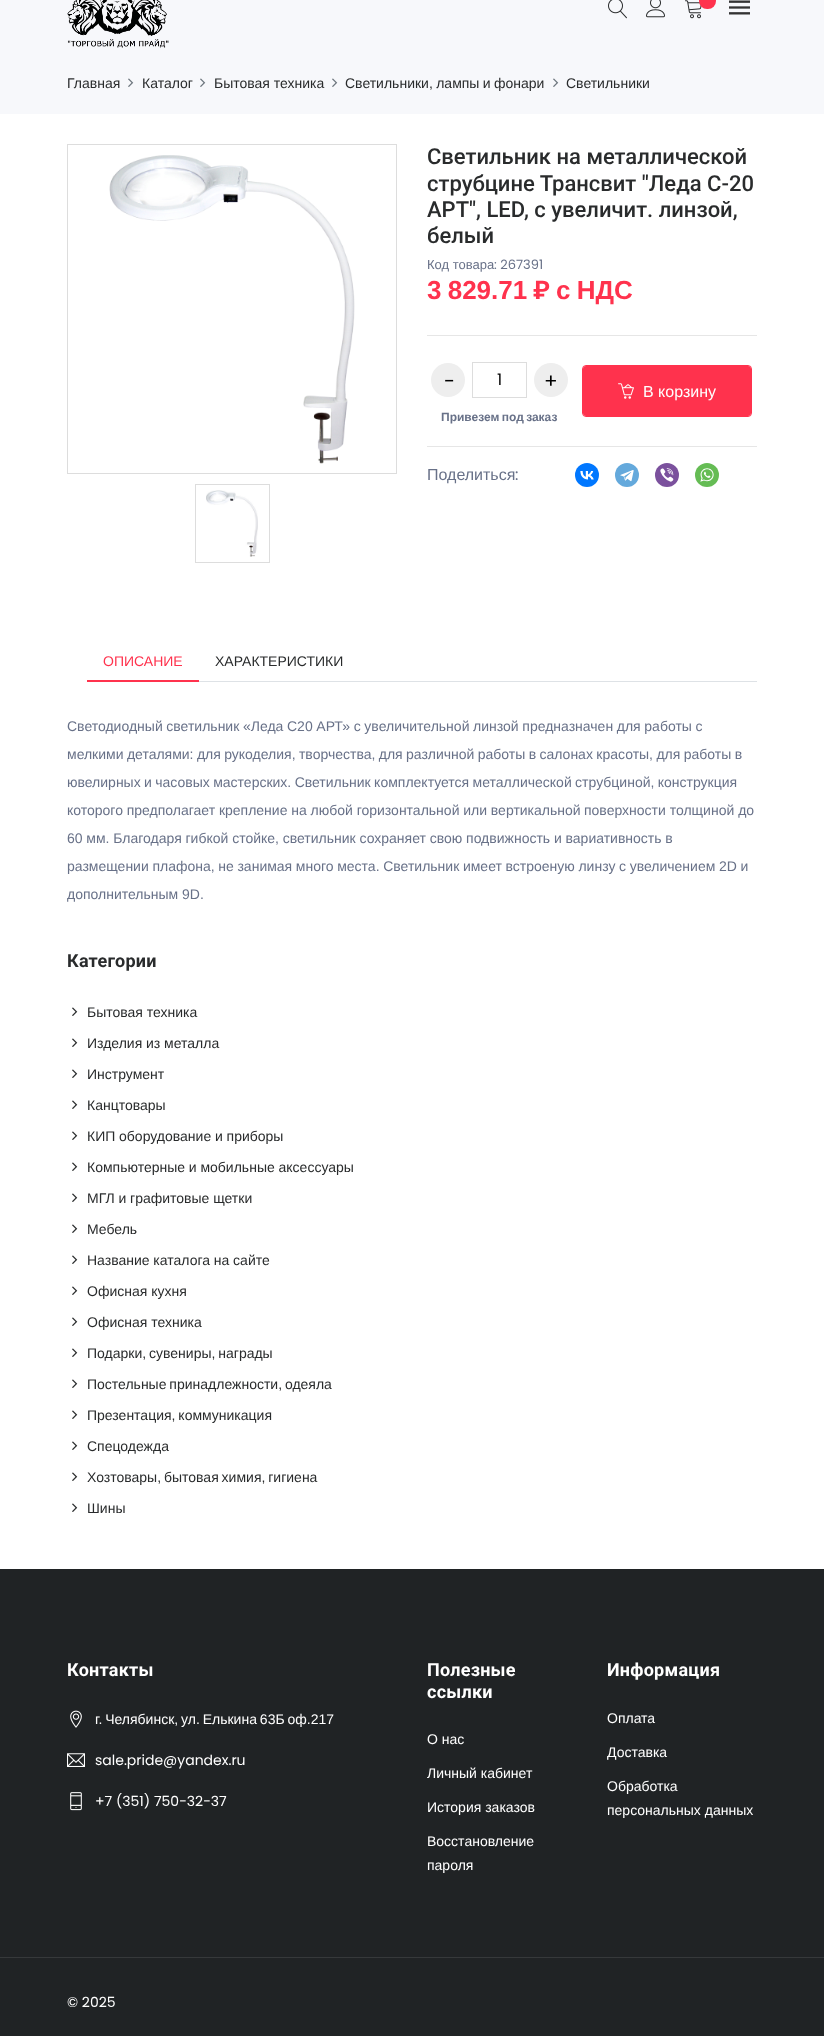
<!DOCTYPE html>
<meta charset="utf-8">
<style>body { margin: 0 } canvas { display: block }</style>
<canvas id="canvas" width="824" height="2036"></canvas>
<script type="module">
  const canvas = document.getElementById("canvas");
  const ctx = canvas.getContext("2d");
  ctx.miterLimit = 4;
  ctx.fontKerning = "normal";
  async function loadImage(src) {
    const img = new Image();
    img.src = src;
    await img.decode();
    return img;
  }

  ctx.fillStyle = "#ffffff";
  ctx.fillRect(0, 0, 824, 2036);
  ctx.fillStyle = "#f7f8fb";
  ctx.fillRect(0, 0, 824, 114);
  ctx.drawImage(await loadImage("img1.png"), 67, 0, 102, 48);
  ctx.drawImage(await loadImage("img2.png"), 608, 0, 19, 19);
  ctx.drawImage(await loadImage("img3.png"), 646, 0, 19, 18);
  ctx.drawImage(await loadImage("img4.png"), 685, 0, 17, 19);
  ctx.fillStyle = "#ff324d";
  ctx.beginPath();
  ctx.roundRect(699, -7, 17, 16, 8);
  ctx.fill();
  ctx.drawImage(await loadImage("img5.png"), 729, 0, 21, 15);
  ctx.font = "14px Liberation Sans";
  ctx.fillStyle = "#292b2c";
  ctx.fillText("Главная", 67, 88);
  ctx.drawImage(await loadImage("img6.png"), 128, 78, 6, 9);
  ctx.fillText("Каталог", 142, 88);
  ctx.drawImage(await loadImage("img6.png"), 200, 78, 6, 9);
  ctx.fillText("Бытовая техника", 214, 88);
  ctx.drawImage(await loadImage("img6.png"), 332, 78, 6, 9);
  ctx.wordSpacing = "-0.5px";
  ctx.fillText("Светильники, лампы и фонари", 345, 88);
  ctx.drawImage(await loadImage("img6.png"), 553, 78, 6, 9);
  ctx.wordSpacing = "0px";
  ctx.fillText("Светильники", 566, 88);
  ctx.strokeStyle = "#dddddd";
  ctx.strokeRect(67.5, 144.5, 329, 329);
  ctx.drawImage(await loadImage("img7.png"), 109, 155, 246, 309);
  ctx.strokeRect(195.5, 484.5, 74, 78);
  ctx.drawImage(await loadImage("img8.png"), 206, 490, 52, 67);
  ctx.font = "500 22px Roboto";
  ctx.fillText("Светильник на металлической", 427, 164);
  ctx.fillText("струбцине Трансвит \"Леда С-20", 427, 191);
  ctx.fillText("АРТ\", LED, с увеличит. линзой,", 427, 217);
  ctx.fillText("белый", 427, 243);
  ctx.font = "13px Liberation Sans";
  ctx.fillStyle = "#687188";
  ctx.fillText("Код товара", 427, 269);
  ctx.font = "13px Poppins";
  ctx.fillText(": 267391", 494, 269);
  ctx.wordSpacing = "-1px";
  ctx.font = "bold 26px Liberation Sans";
  ctx.fillStyle = "#ff324d";
  ctx.fillText("3 829.71", 427, 299);
  ctx.wordSpacing = "0px";
  ctx.font = "600 26px Poppins";
  ctx.fillText("₽", 533, 299);
  ctx.wordSpacing = "-1px";
  ctx.font = "bold 26px Liberation Sans";
  ctx.fillText("с НДС", 556, 299);
  ctx.fillStyle = "#e6e6e6";
  ctx.fillRect(427, 335, 330, 1);
  ctx.fillStyle = "#eeeeee";
  ctx.beginPath();
  ctx.arc(448, 380, 17, 0, Math.PI * 2);
  ctx.fill();
  ctx.wordSpacing = "0px";
  ctx.font = "20px Poppins";
  ctx.fillStyle = "#000000";
  ctx.fillText("-", 444, 388);
  ctx.strokeRect(472.5, 362.5, 54, 35);
  ctx.font = "16px Poppins";
  ctx.fillText("1", 497, 385);
  ctx.fillStyle = "#eeeeee";
  ctx.beginPath();
  ctx.arc(551, 380, 17, 0, Math.PI * 2);
  ctx.fill();
  ctx.font = "20px Poppins";
  ctx.fillStyle = "#000000";
  ctx.fillText("+", 544, 388);
  ctx.wordSpacing = "-1px";
  ctx.font = "bold 12px Liberation Sans";
  ctx.fillStyle = "#687188";
  ctx.fillText("Привезем под заказ", 441, 421);
  ctx.beginPath();
  ctx.roundRect(582.5, 365.5, 169, 51, 3.5);
  ctx.strokeStyle = "#ff324d";
  ctx.stroke();
  ctx.fillStyle = "#ff324d";
  ctx.beginPath();
  ctx.roundRect(583, 366, 86, 50, [3, 0, 0, 3]);
  ctx.fill();
  ctx.beginPath();
  ctx.roundRect(665, 366, 86, 50, [0, 3, 3, 0]);
  ctx.fill();
  ctx.drawImage(await loadImage("img9.png"), 618, 383, 16, 16);
  ctx.wordSpacing = "0px";
  ctx.font = "16px Liberation Sans";
  ctx.fillStyle = "#ffffff";
  ctx.fillText("В корзину", 643, 397);
  ctx.fillStyle = "#e6e6e6";
  ctx.fillRect(427, 446, 330, 1);
  ctx.fillStyle = "#687188";
  ctx.fillText("Поделиться", 427, 480);
  ctx.font = "16px Poppins";
  ctx.fillText(":", 515, 480);
  ctx.fillStyle = "#0077ff";
  ctx.beginPath();
  ctx.arc(587, 475, 12, 0, Math.PI * 2);
  ctx.fill();
  ctx.drawImage(await loadImage("img10.png"), 580, 471, 14, 9);
  ctx.fillStyle = "#64a9dc";
  ctx.beginPath();
  ctx.arc(627, 475, 12, 0, Math.PI * 2);
  ctx.fill();
  ctx.drawImage(await loadImage("img11.png"), 620, 470, 14, 12);
  ctx.fillStyle = "#7b519d";
  ctx.beginPath();
  ctx.arc(667, 475, 12, 0, Math.PI * 2);
  ctx.fill();
  ctx.drawImage(await loadImage("img12.png"), 660, 468, 14, 14);
  ctx.fillStyle = "#65bc54";
  ctx.beginPath();
  ctx.arc(707, 475, 12, 0, Math.PI * 2);
  ctx.fill();
  ctx.drawImage(await loadImage("img13.png"), 700, 468, 14, 14);
  ctx.fillStyle = "#dee2e6";
  ctx.fillRect(199, 681, 558, 1);
  ctx.fillStyle = "#ff324d";
  ctx.fillRect(87, 680, 112, 2);
  ctx.font = "14px Liberation Sans";
  ctx.fillText("ОПИСАНИЕ", 103, 666);
  ctx.fillStyle = "#292b2c";
  ctx.fillText("ХАРАКТЕРИСТИКИ", 215, 666);
  ctx.wordSpacing = "-0.25px";
  ctx.fillStyle = "#687188";
  ctx.fillText("Светодиодный светильник «Леда С20 АРТ» с увеличительной линзой предназначен для работы с", 67, 731);
  ctx.wordSpacing = "-0.5px";
  ctx.fillText("мелкими деталями: для рукоделия, творчества, для различной работы в салонах красоты, для работы в", 67, 759);
  ctx.fillText("ювелирных и часовых мастерских. Светильник комплектуется металлической струбциной, конструкция", 67, 787);
  ctx.wordSpacing = "-0.1px";
  ctx.fillText("которого предполагает крепление на любой горизонтальной или вертикальной", 67, 815);
  ctx.wordSpacing = "0px";
  ctx.fillText("поверхности толщиной до", 584, 815);
  ctx.wordSpacing = "-0.1px";
  ctx.fillText("60 мм. Благодаря гибкой стойке, светильник сохраняет свою подвижность и вариативность в", 67, 843);
  ctx.wordSpacing = "-0.25px";
  ctx.fillText("размещении плафона, не занимая много места. Cветильник имеет встроеную линзу с увеличением 2D и", 67, 871);
  ctx.wordSpacing = "0px";
  ctx.fillText("дополнительным 9D.", 67, 899);
  ctx.letterSpacing = "0.25px";
  ctx.font = "bold 18px Roboto";
  ctx.fillStyle = "#292b2c";
  ctx.fillText("Категории", 67, 967);
  ctx.drawImage(await loadImage("img14.png"), 72, 1007, 6, 9);
  ctx.letterSpacing = "0px";
  ctx.font = "14px Liberation Sans";
  ctx.fillText("Бытовая техника", 87, 1017);
  ctx.drawImage(await loadImage("img14.png"), 72, 1038, 6, 9);
  ctx.wordSpacing = "-0.1px";
  ctx.fillText("Изделия из металла", 87, 1048);
  ctx.drawImage(await loadImage("img14.png"), 72, 1069, 6, 9);
  ctx.wordSpacing = "0px";
  ctx.fillText("Инструмент", 87, 1079);
  ctx.drawImage(await loadImage("img14.png"), 72, 1100, 6, 9);
  ctx.fillText("Канцтовары", 87, 1110);
  ctx.drawImage(await loadImage("img14.png"), 72, 1131, 6, 9);
  ctx.wordSpacing = "-0.1px";
  ctx.fillText("КИП оборудование и приборы", 87, 1141);
  ctx.drawImage(await loadImage("img14.png"), 72, 1162, 6, 9);
  ctx.fillText("Компьютерные и мобильные аксессуары", 87, 1172);
  ctx.drawImage(await loadImage("img14.png"), 72, 1193, 6, 9);
  ctx.fillText("МГЛ и графитовые щетки", 87, 1203);
  ctx.drawImage(await loadImage("img14.png"), 72, 1224, 6, 9);
  ctx.wordSpacing = "0px";
  ctx.fillText("Мебель", 87, 1234);
  ctx.drawImage(await loadImage("img14.png"), 72, 1255, 6, 9);
  ctx.wordSpacing = "-0.1px";
  ctx.fillText("Название каталога на сайте", 87, 1265);
  ctx.drawImage(await loadImage("img14.png"), 72, 1286, 6, 9);
  ctx.wordSpacing = "0px";
  ctx.fillText("Офисная кухня", 87, 1296);
  ctx.drawImage(await loadImage("img14.png"), 72, 1317, 6, 9);
  ctx.fillText("Офисная техника", 87, 1327);
  ctx.drawImage(await loadImage("img14.png"), 72, 1348, 6, 9);
  ctx.wordSpacing = "-1px";
  ctx.fillText("Подарки, сувениры, награды", 87, 1358);
  ctx.drawImage(await loadImage("img14.png"), 72, 1379, 6, 9);
  ctx.fillText("Постельные принадлежности, одеяла", 87, 1389);
  ctx.drawImage(await loadImage("img14.png"), 72, 1410, 6, 9);
  ctx.fillText("Презентация, коммуникация", 87, 1420);
  ctx.drawImage(await loadImage("img14.png"), 72, 1441, 6, 9);
  ctx.wordSpacing = "0px";
  ctx.fillText("Спецодежда", 87, 1451);
  ctx.drawImage(await loadImage("img14.png"), 72, 1472, 6, 9);
  ctx.wordSpacing = "-1px";
  ctx.fillText("Хозтовары, бытовая химия, гигиена", 87, 1482);
  ctx.drawImage(await loadImage("img14.png"), 72, 1503, 6, 9);
  ctx.wordSpacing = "0px";
  ctx.fillText("Шины", 87, 1513);
  ctx.fillStyle = "#202325";
  ctx.fillRect(0, 1569, 824, 467);
  ctx.letterSpacing = "0.25px";
  ctx.font = "bold 18px Roboto";
  ctx.fillStyle = "#ffffff";
  ctx.fillText("Контакты", 67, 1676);
  ctx.drawImage(await loadImage("img15.png"), 70, 1710, 12, 18);
  ctx.letterSpacing = "0px";
  ctx.wordSpacing = "-1px";
  ctx.font = "14px Liberation Sans";
  ctx.fillText("г. Челябинск, ул. Елькина 63Б оф.217", 95, 1724);
  ctx.drawImage(await loadImage("img16.png"), 67, 1753, 18, 14);
  ctx.wordSpacing = "0px";
  ctx.font = "14px Poppins";
  ctx.fillText("sale.pride@yandex.ru", 95, 1765);
  ctx.drawImage(await loadImage("img17.png"), 70, 1792, 12, 19);
  ctx.fillText("+7 (351) 750-32-37", 95, 1806);
  ctx.letterSpacing = "0.25px";
  ctx.font = "bold 18px Roboto";
  ctx.fillText("Полезные", 427, 1676);
  ctx.fillText("ссылки", 427, 1698);
  ctx.letterSpacing = "0px";
  ctx.font = "14px Liberation Sans";
  ctx.fillText("О нас", 427, 1744);
  ctx.fillText("Личный кабинет", 427, 1778);
  ctx.fillText("История заказов", 427, 1812);
  ctx.fillText("Восстановление", 427, 1846);
  ctx.fillText("пароля", 427, 1870);
  ctx.letterSpacing = "0.25px";
  ctx.font = "bold 18px Roboto";
  ctx.fillText("Информация", 607, 1676);
  ctx.letterSpacing = "0px";
  ctx.font = "14px Liberation Sans";
  ctx.fillText("Оплата", 607, 1723);
  ctx.fillText("Доставка", 607, 1757);
  ctx.fillText("Обработка", 607, 1791);
  ctx.fillText("персональных данных", 607, 1815);
  ctx.fillStyle = "#36393b";
  ctx.fillRect(0, 1957, 824, 1);
  ctx.font = "14px Poppins";
  ctx.fillStyle = "#ffffff";
  ctx.fillText("© 2025", 67, 2007);
</script>
